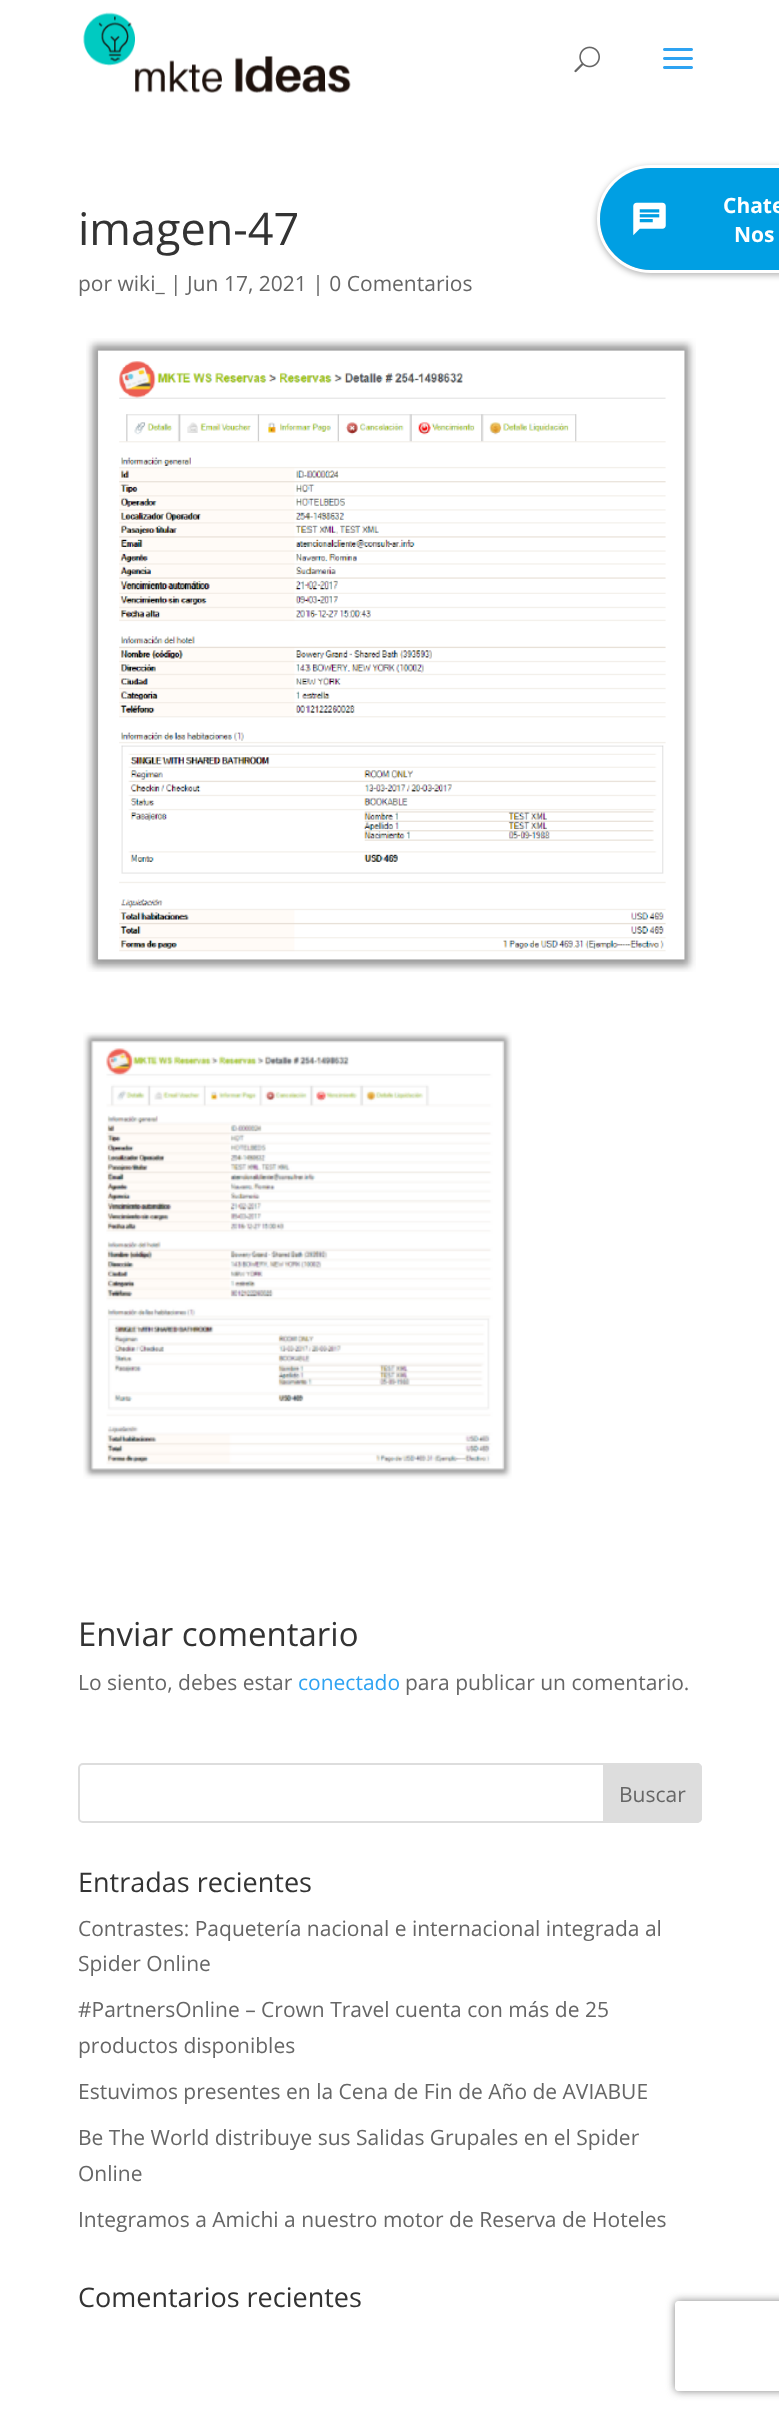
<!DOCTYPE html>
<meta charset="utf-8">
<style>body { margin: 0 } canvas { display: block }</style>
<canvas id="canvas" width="779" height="2412"></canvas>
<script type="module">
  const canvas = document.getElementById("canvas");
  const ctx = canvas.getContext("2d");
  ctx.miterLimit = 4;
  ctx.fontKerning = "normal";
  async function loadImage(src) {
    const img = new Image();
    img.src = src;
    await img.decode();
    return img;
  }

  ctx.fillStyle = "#ffffff";
  ctx.fillRect(0, 0, 779, 2412);
  ctx.drawImage(await loadImage("img1.png"), 83, 12, 268, 81);
  ctx.drawImage(await loadImage("img2.png"), 574, 46, 26, 27);
  ctx.drawImage(await loadImage("img3.png"), 663, 48, 30, 21);
  ctx.font = "45px Open Sans";
  ctx.fillStyle = "#333333";
  ctx.fillText("imagen-47", 78, 245);
  ctx.font = "21px Open Sans";
  ctx.fillStyle = "#666666";
  ctx.fillText("por wiki_ | Jun 17, 2021 | 0 Comentarios", 78, 291);
  ctx.drawImage(await loadImage("img4.png"), 86, 338, 610, 634);
  ctx.drawImage(await loadImage("img5.png"), 83, 1032, 429, 447);
  ctx.font = "33px Open Sans";
  ctx.fillStyle = "#333333";
  ctx.fillText("Enviar comentario", 78, 1646);
  ctx.font = "21px Open Sans";
  ctx.fillStyle = "#666666";
  ctx.fillText("Lo siento, debes estar", 78, 1690);
  ctx.fillStyle = "#2ea3f2";
  ctx.fillText("conectado", 298, 1690);
  ctx.fillStyle = "#666666";
  ctx.fillText("para publicar un comentario.", 405, 1690);
  ctx.beginPath();
  ctx.roundRect(79, 1764, 622, 58, 4);
  ctx.strokeStyle = "#dddddd";
  ctx.lineWidth = 2;
  ctx.stroke();
  ctx.fillStyle = "#dddddd";
  ctx.beginPath();
  ctx.roundRect(604, 1764, 97, 58, [0, 4, 4, 0]);
  ctx.fill();
  ctx.stroke();
  ctx.fillStyle = "#666666";
  ctx.fillText("Buscar", 619, 1802);
  ctx.font = "27px Open Sans";
  ctx.fillStyle = "#333333";
  ctx.fillText("Entradas recientes", 78, 1892);
  ctx.font = "21px Open Sans";
  ctx.fillStyle = "#666666";
  ctx.fillText("Contrastes: Paquetería nacional e internacional integrada al", 78, 1936);
  ctx.fillText("Spider Online", 78, 1971);
  ctx.fillText("#PartnersOnline – Crown Travel cuenta con más de 25", 78, 2017);
  ctx.fillText("productos disponibles", 78, 2053);
  ctx.fillText("Estuvimos presentes en la Cena de Fin de Año de AVIABUE", 78, 2099);
  ctx.fillText("Be The World distribuye sus Salidas Grupales en el Spider", 78, 2145);
  ctx.fillText("Online", 78, 2181);
  ctx.fillText("Integramos a Amichi a nuestro motor de Reserva de Hoteles", 78, 2227);
  ctx.font = "27px Open Sans";
  ctx.fillStyle = "#333333";
  ctx.fillText("Comentarios recientes", 78, 2307);
  ctx.fillStyle = "rgba(0, 0, 0, 0.3)";
  ctx.filter = "blur(3px)";
  ctx.beginPath();
  ctx.roundRect(597, 167, 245, 108, 54);
  ctx.fill();
  ctx.filter = "none";
  ctx.beginPath();
  ctx.moveTo(651, 166.5);
  ctx.lineTo(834.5, 166.5);
  ctx.lineTo(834.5, 271.5);
  ctx.lineTo(651, 271.5);
  ctx.bezierCurveTo(622, 271.5, 598.5, 248, 598.5, 219);
  ctx.bezierCurveTo(598.5, 190, 622, 166.5, 651, 166.5);
  ctx.closePath();
  ctx.strokeStyle = "#ffffff";
  ctx.lineWidth = 3;
  ctx.stroke();
  ctx.fillStyle = "#009fe3";
  ctx.beginPath();
  ctx.moveTo(651, 168);
  ctx.lineTo(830, 168);
  ctx.lineTo(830, 270);
  ctx.lineTo(651, 270);
  ctx.bezierCurveTo(623, 270, 600, 247, 600, 219);
  ctx.bezierCurveTo(600, 191, 623, 168, 651, 168);
  ctx.closePath();
  ctx.fill();
  ctx.drawImage(await loadImage("img6.png"), 633, 202, 33, 34);
  ctx.font = "bold 21px Open Sans";
  ctx.fillStyle = "#ffffff";
  ctx.fillText("Chate", 723, 213);
  ctx.fillText("Nos", 734, 242);
  ctx.save();
  ctx.beginPath();
  ctx.moveTo(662, 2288);
  ctx.lineTo(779, 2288);
  ctx.lineTo(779, 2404);
  ctx.lineTo(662, 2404);
  ctx.closePath();
  ctx.moveTo(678, 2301);
  ctx.lineTo(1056, 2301);
  ctx.bezierCurveTo(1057.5, 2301, 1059, 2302.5, 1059, 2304);
  ctx.lineTo(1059, 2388);
  ctx.bezierCurveTo(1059, 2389.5, 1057.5, 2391, 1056, 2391);
  ctx.lineTo(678, 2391);
  ctx.bezierCurveTo(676.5, 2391, 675, 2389.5, 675, 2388);
  ctx.lineTo(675, 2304);
  ctx.bezierCurveTo(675, 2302.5, 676.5, 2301, 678, 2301);
  ctx.closePath();
  ctx.clip("evenodd");
  ctx.fillStyle = "#808080";
  ctx.filter = "blur(4px)";
  ctx.beginPath();
  ctx.roundRect(675, 2301, 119, 90, 3);
  ctx.fill();
  ctx.filter = "none";
  ctx.restore();
</script>
